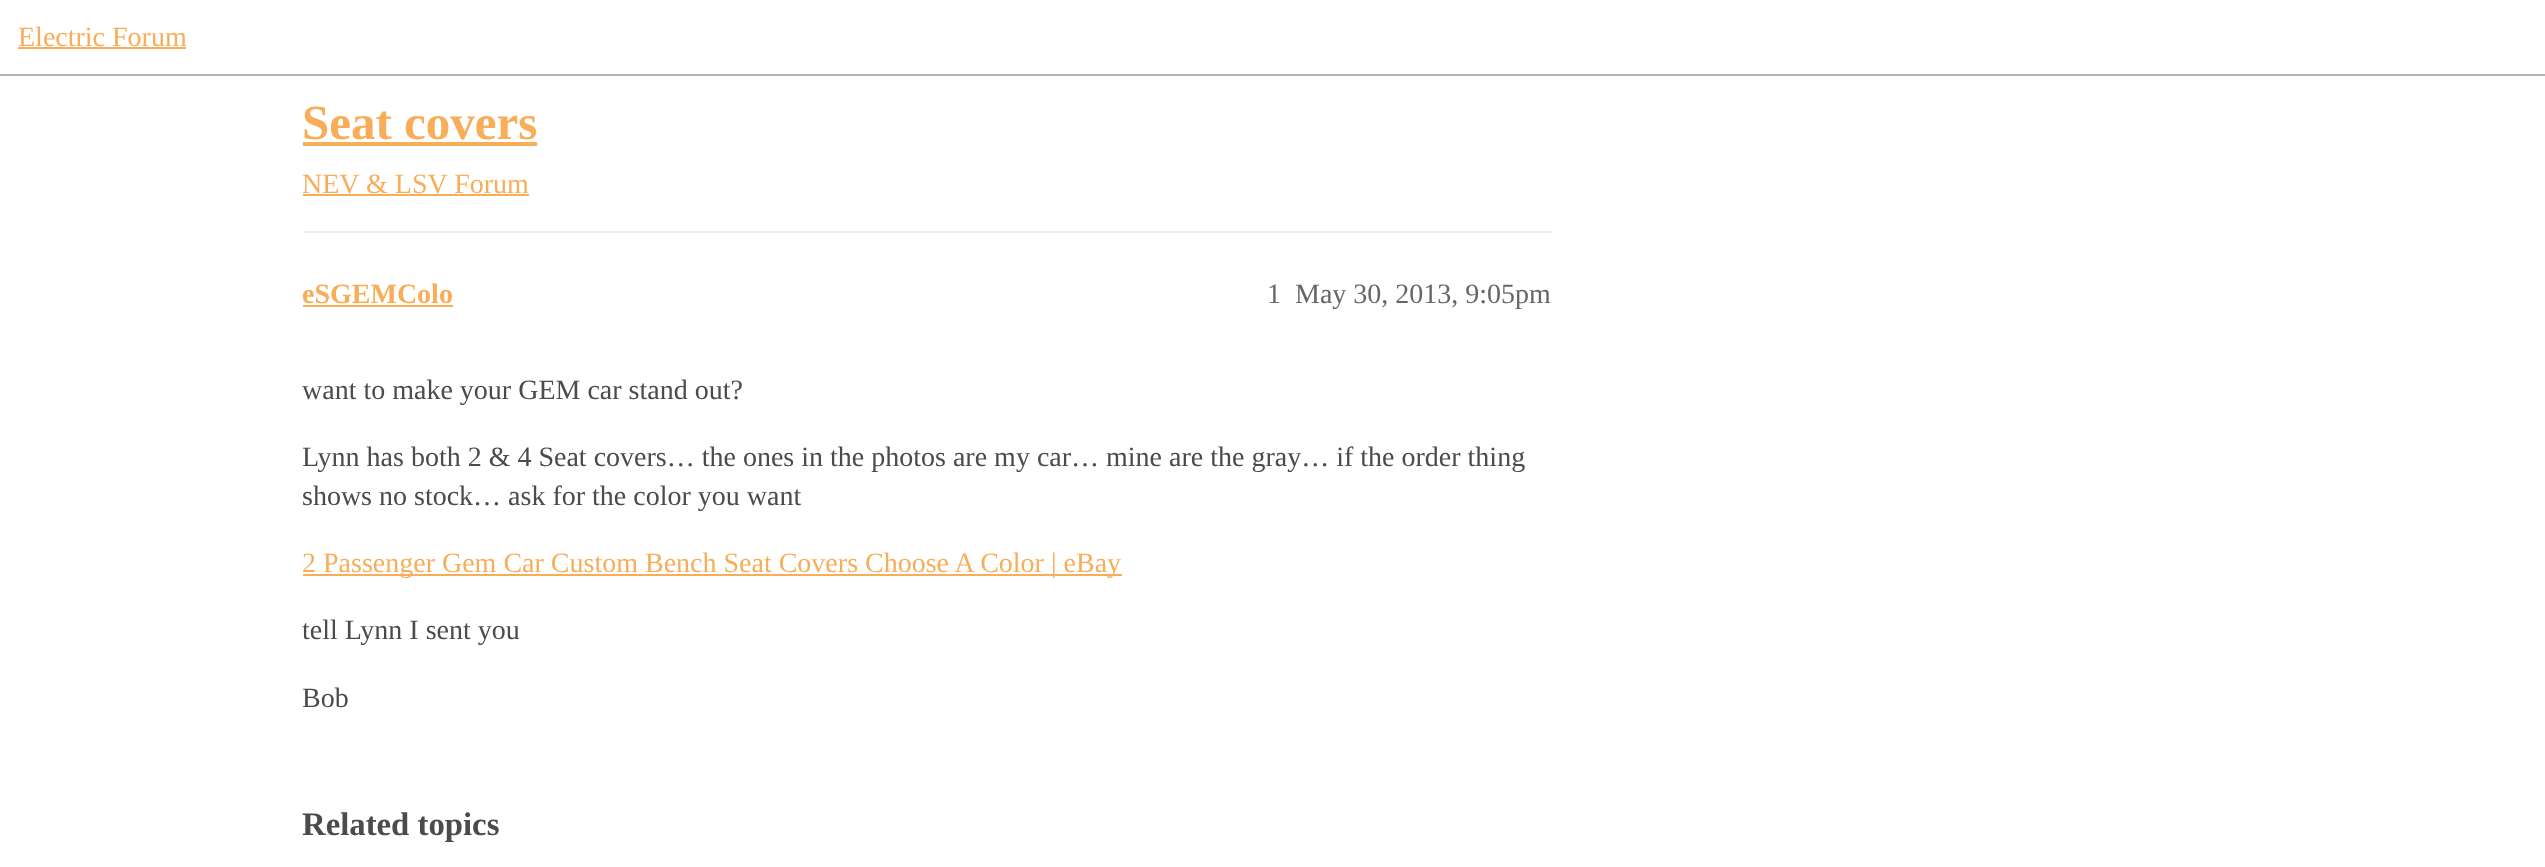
<!DOCTYPE html>
<meta charset="utf-8">
<style>body { margin: 0 } canvas { display: block }</style>
<canvas id="canvas" width="2545" height="867"></canvas>
<script type="module">
  const canvas = document.getElementById("canvas");
  const ctx = canvas.getContext("2d");
  ctx.miterLimit = 4;
  ctx.fontKerning = "normal";

  ctx.fillStyle = "#ffffff";
  ctx.fillRect(0, 0, 2545, 867);
  ctx.fillStyle = "#b4b4b4";
  ctx.fillRect(0, 74, 2545, 2);
  ctx.font = "28px Liberation Serif";
  ctx.fillStyle = "#f8ad58";
  ctx.fillText("Electric Forum", 18, 46);
  ctx.fillRect(18, 47, 168, 2);
  ctx.font = "bold 49px Liberation Serif";
  ctx.fillText("Seat covers", 302, 139);
  ctx.fillRect(303, 142, 234, 4);
  ctx.font = "28px Liberation Serif";
  ctx.fillText("NEV & LSV Forum", 302, 193);
  ctx.fillRect(303, 194, 226, 2);
  ctx.fillStyle = "#ededed";
  ctx.fillRect(303, 231, 1249, 2);
  ctx.font = "bold 28px Liberation Serif";
  ctx.fillStyle = "#f8ad58";
  ctx.fillText("eSGEMColo", 302, 303);
  ctx.fillRect(303, 305, 150, 2);
  ctx.font = "28px Liberation Serif";
  ctx.fillStyle = "#666666";
  ctx.fillText("1", 1267, 303);
  ctx.fillText("May 30, 2013, 9:05pm", 1295, 303);
  ctx.fillStyle = "#4c4b4b";
  ctx.fillText("want to make your GEM car stand out?", 302, 399);
  ctx.save();
  ctx.beginPath();
  ctx.rect(303, 343, 1249, 403);
  ctx.clip();
  ctx.fillText("Lynn has both 2 & 4 Seat covers… the ones in the photos are my car… mine are the gray… if the order thing", 302, 466);
  ctx.restore();
  ctx.fillText("shows no stock… ask for the color you want", 302, 505);
  ctx.fillStyle = "#f8ad58";
  ctx.fillRect(303, 574, 819, 2);
  ctx.fillText("2 Passenger Gem Car Custom Bench Seat Covers Choose A Color | eBay", 302, 572);
  ctx.fillStyle = "#4c4b4b";
  ctx.fillText("tell Lynn I sent you", 302, 639);
  ctx.save();
  ctx.beginPath();
  ctx.rect(303, 343, 1249, 403);
  ctx.clip();
  ctx.fillText("Bob", 302, 707);
  ctx.restore();
  ctx.font = "bold 32.75px Liberation Serif";
  ctx.fillText("Related topics", 302, 835);
</script>
